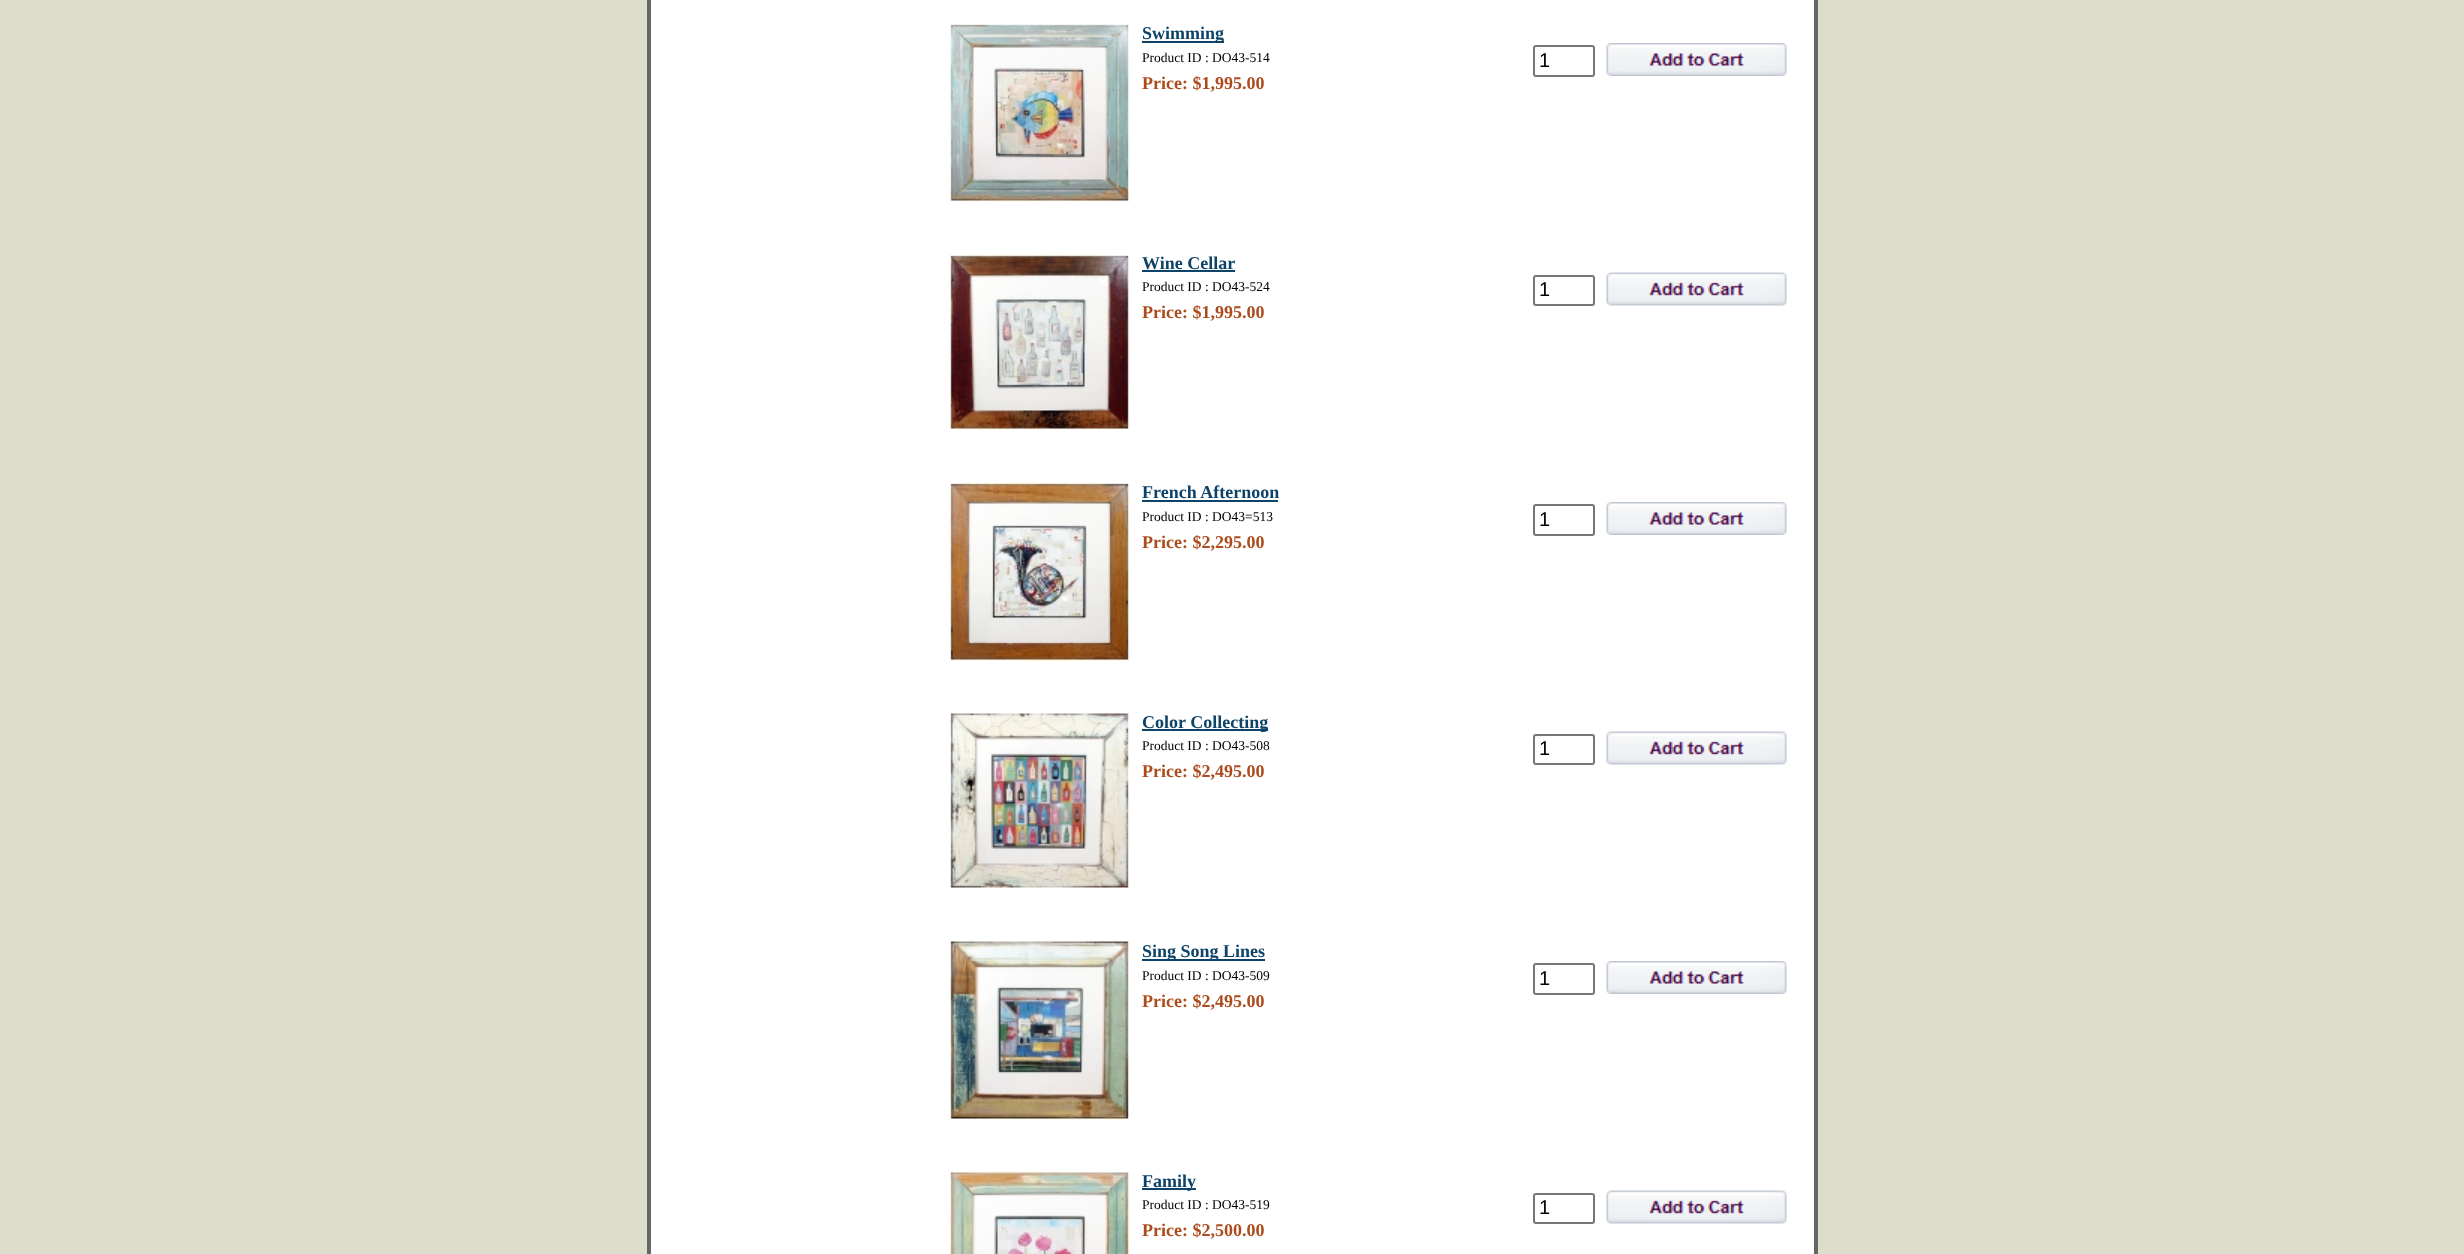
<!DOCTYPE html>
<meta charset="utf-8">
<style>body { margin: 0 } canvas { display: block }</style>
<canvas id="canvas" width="2464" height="1254"></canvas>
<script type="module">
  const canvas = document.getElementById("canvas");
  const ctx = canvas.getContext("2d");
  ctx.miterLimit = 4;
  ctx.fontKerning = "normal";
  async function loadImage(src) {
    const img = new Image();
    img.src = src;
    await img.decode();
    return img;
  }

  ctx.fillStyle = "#ddddcc";
  ctx.fillRect(0, 0, 2464, 1254);
  ctx.strokeStyle = "#666666";
  ctx.lineWidth = 3;
  ctx.strokeRect(648.5, -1.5, 1168, 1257);
  ctx.fillStyle = "#666666";
  ctx.fillRect(1814, 0, 1, 1254);
  ctx.fillRect(650, 0, 1, 1254);
  ctx.fillStyle = "#ffffff";
  ctx.fillRect(651, 0, 1163, 1254);
  ctx.drawImage(await loadImage("img1.png"), 949, 24, 181, 178);
  ctx.fillStyle = "#0e4369";
  ctx.fillRect(1142, 41, 82, 2);
  ctx.font = "bold 18px Liberation Serif";
  ctx.fillText("Swimming", 1142, 39);
  ctx.font = "13.5px Liberation Serif";
  ctx.fillStyle = "#000000";
  ctx.fillText("Product ID : DO43-514", 1142, 62);
  ctx.font = "bold 18px Liberation Serif";
  ctx.fillStyle = "#ac4c1c";
  ctx.fillText("Price: $1,995.00", 1142, 89);
  ctx.beginPath();
  ctx.roundRect(1534, 46, 60, 30, 2);
  ctx.strokeStyle = "#767676";
  ctx.lineWidth = 2;
  ctx.stroke();
  ctx.font = "20px Liberation Sans";
  ctx.fillStyle = "#000000";
  ctx.fillText("1", 1539, 67);
  ctx.drawImage(await loadImage("img2.png"), 1606, 43, 181, 33);
  ctx.drawImage(await loadImage("img3.png"), 949, 253, 181, 177);
  ctx.font = "bold 18px Liberation Serif";
  ctx.fillStyle = "#0e4369";
  ctx.fillText("Wine Cellar", 1142, 269);
  ctx.fillRect(1142, 270, 93, 2);
  ctx.font = "13.5px Liberation Serif";
  ctx.fillStyle = "#000000";
  ctx.fillText("Product ID : DO43-524", 1142, 291);
  ctx.font = "bold 18px Liberation Serif";
  ctx.fillStyle = "#ac4c1c";
  ctx.fillText("Price: $1,995.00", 1142, 318);
  ctx.beginPath();
  ctx.roundRect(1534, 276, 60, 29, 2);
  ctx.stroke();
  ctx.font = "20px Liberation Sans";
  ctx.fillStyle = "#000000";
  ctx.fillText("1", 1539, 296);
  ctx.drawImage(await loadImage("img4.png"), 1606, 272, 181, 34);
  ctx.drawImage(await loadImage("img5.png"), 949, 482, 181, 179);
  ctx.font = "bold 18px Liberation Serif";
  ctx.fillStyle = "#0e4369";
  ctx.fillText("French Afternoon", 1142, 498);
  ctx.fillRect(1142, 500, 136, 2);
  ctx.font = "13.5px Liberation Serif";
  ctx.fillStyle = "#000000";
  ctx.fillText("Product ID : DO43=513", 1142, 521);
  ctx.font = "bold 18px Liberation Serif";
  ctx.fillStyle = "#ac4c1c";
  ctx.fillText("Price: $2,295.00", 1142, 548);
  ctx.beginPath();
  ctx.roundRect(1534, 505, 60, 30, 2);
  ctx.stroke();
  ctx.font = "20px Liberation Sans";
  ctx.fillStyle = "#000000";
  ctx.fillText("1", 1539, 526);
  ctx.drawImage(await loadImage("img2.png"), 1606, 502, 181, 33);
  ctx.drawImage(await loadImage("img6.png"), 950, 713, 180, 176);
  ctx.fillStyle = "#0e4369";
  ctx.fillRect(1142, 729, 126, 2);
  ctx.font = "bold 18px Liberation Serif";
  ctx.fillText("Color Collecting", 1142, 728);
  ctx.font = "13.5px Liberation Serif";
  ctx.fillStyle = "#000000";
  ctx.fillText("Product ID : DO43-508", 1142, 750);
  ctx.font = "bold 18px Liberation Serif";
  ctx.fillStyle = "#ac4c1c";
  ctx.fillText("Price: $2,495.00", 1142, 777);
  ctx.beginPath();
  ctx.roundRect(1534, 735, 60, 29, 2);
  ctx.stroke();
  ctx.font = "20px Liberation Sans";
  ctx.fillStyle = "#000000";
  ctx.fillText("1", 1539, 755);
  ctx.drawImage(await loadImage("img4.png"), 1606, 731, 181, 34);
  ctx.drawImage(await loadImage("img7.png"), 949, 940, 181, 180);
  ctx.fillStyle = "#0e4369";
  ctx.fillRect(1142, 959, 123, 2);
  ctx.font = "bold 18px Liberation Serif";
  ctx.fillText("Sing Song Lines", 1142, 957);
  ctx.font = "13.5px Liberation Serif";
  ctx.fillStyle = "#000000";
  ctx.fillText("Product ID : DO43-509", 1142, 980);
  ctx.font = "bold 18px Liberation Serif";
  ctx.fillStyle = "#ac4c1c";
  ctx.fillText("Price: $2,495.00", 1142, 1007);
  ctx.beginPath();
  ctx.roundRect(1534, 964, 60, 30, 2);
  ctx.stroke();
  ctx.font = "20px Liberation Sans";
  ctx.fillStyle = "#000000";
  ctx.fillText("1", 1539, 985);
  ctx.drawImage(await loadImage("img2.png"), 1606, 961, 181, 33);
  ctx.drawImage(await loadImage("img8.png"), 949, 1171, 181, 83);
  ctx.fillStyle = "#0e4369";
  ctx.fillRect(1142, 1188, 54, 2);
  ctx.font = "bold 18px Liberation Serif";
  ctx.fillText("Family", 1142, 1187);
  ctx.font = "13.5px Liberation Serif";
  ctx.fillStyle = "#000000";
  ctx.fillText("Product ID : DO43-519", 1142, 1209);
  ctx.font = "bold 18px Liberation Serif";
  ctx.fillStyle = "#ac4c1c";
  ctx.fillText("Price: $2,500.00", 1142, 1236);
  ctx.beginPath();
  ctx.roundRect(1534, 1194, 60, 29, 2);
  ctx.stroke();
  ctx.font = "20px Liberation Sans";
  ctx.fillStyle = "#000000";
  ctx.fillText("1", 1539, 1214);
  ctx.drawImage(await loadImage("img4.png"), 1606, 1190, 181, 34);
</script>
